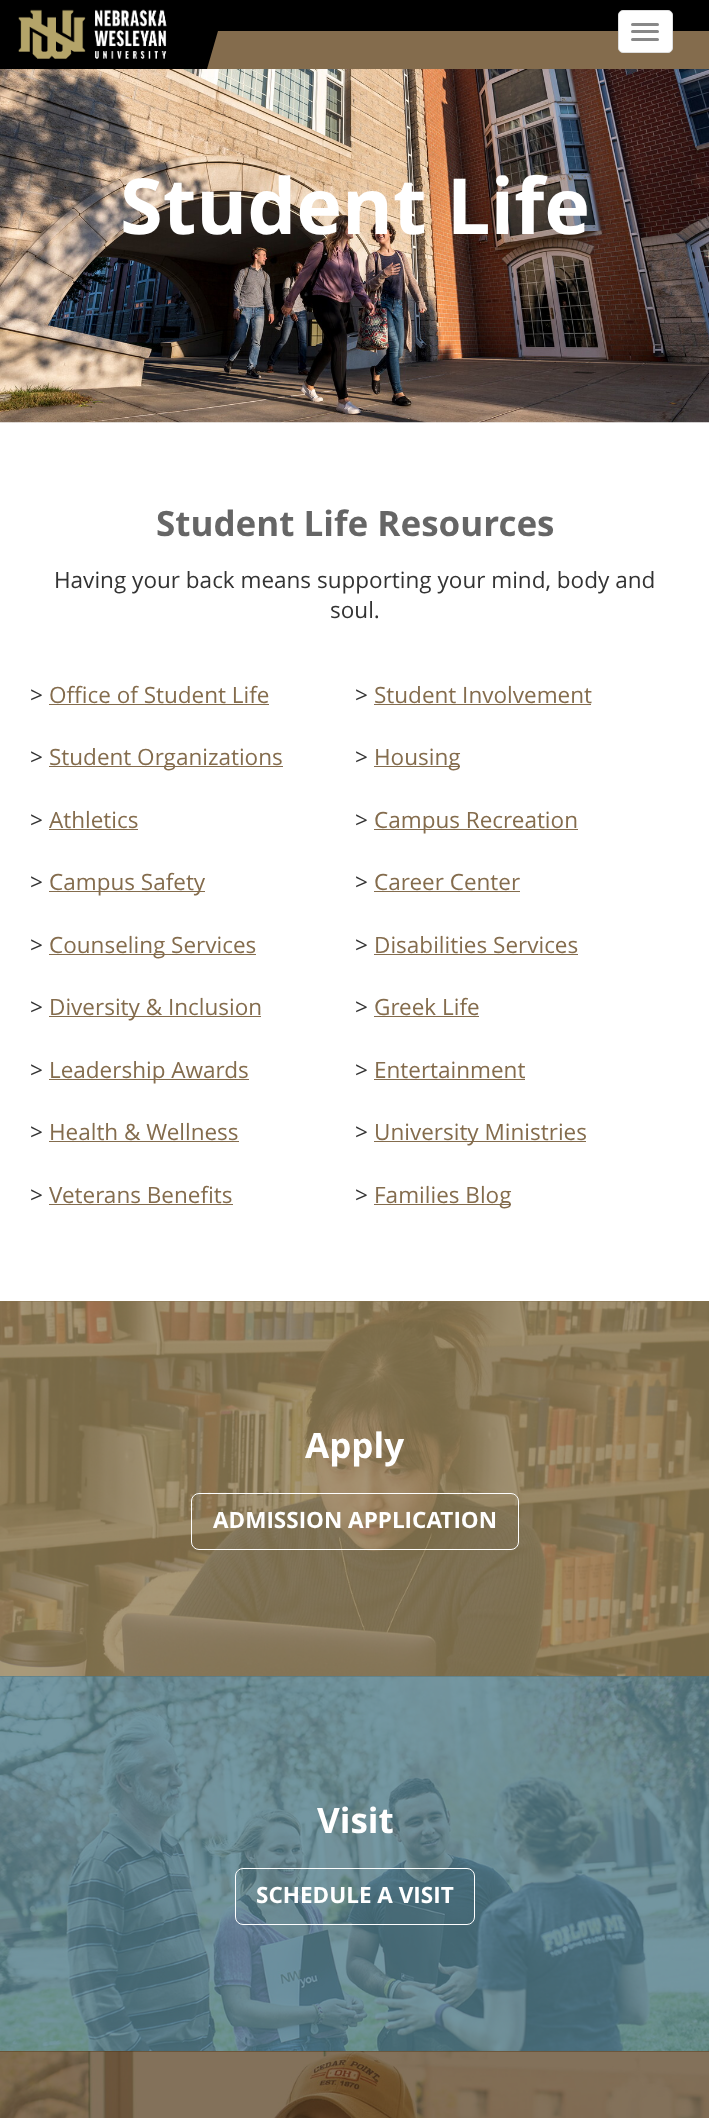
<!DOCTYPE html>
<meta charset="utf-8">
<style>body { margin: 0 } canvas { display: block }</style>
<canvas id="canvas" width="709" height="2118"></canvas>
<script type="module">
  const canvas = document.getElementById("canvas");
  const ctx = canvas.getContext("2d");
  ctx.miterLimit = 4;
  ctx.fontKerning = "normal";
  async function loadImage(src) {
    const img = new Image();
    img.src = src;
    await img.decode();
    return img;
  }

  ctx.fillStyle = "#ffffff";
  ctx.fillRect(0, 0, 709, 2118);
  ctx.fillStyle = "#000000";
  ctx.fillRect(0, 0, 709, 69);
  ctx.drawImage(await loadImage("img1.png"), 18, 9, 149, 50);
  ctx.fillStyle = "#846c4d";
  ctx.beginPath();
  ctx.moveTo(218, 31);
  ctx.lineTo(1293, 31);
  ctx.lineTo(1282, 69);
  ctx.lineTo(207, 69);
  ctx.closePath();
  ctx.fill();
  ctx.fillStyle = "#ffffff";
  ctx.beginPath();
  ctx.roundRect(618.5, 10.5, 54, 42, 4.5);
  ctx.fill();
  ctx.strokeStyle = "#dddddd";
  ctx.stroke();
  ctx.fillStyle = "#888888";
  ctx.beginPath();
  ctx.roundRect(631, 23, 28, 3, 1.5);
  ctx.fill();
  ctx.beginPath();
  ctx.roundRect(631, 30, 28, 3, 1.5);
  ctx.fill();
  ctx.beginPath();
  ctx.roundRect(631, 38, 28, 3, 1.5);
  ctx.fill();
  ctx.drawImage(await loadImage("img2.png"), 0, 69, 709, 354);
  ctx.font = "bold 77.5px Open Sans";
  ctx.fillStyle = "#ffffff";
  ctx.fillText("Student Life", 120, 234);
  ctx.font = "bold 35px Open Sans";
  ctx.fillStyle = "#666666";
  ctx.fillText("Student Life Resources", 156, 536);
  ctx.font = "22.5px Open Sans";
  ctx.fillStyle = "#333333";
  ctx.fillText("Having your back means supporting your mind, body and", 54, 588);
  ctx.fillText("soul.", 330, 618);
  ctx.fillText(">", 30, 703);
  ctx.fillStyle = "#846c4d";
  ctx.fillText("Office of Student Life", 49, 703);
  ctx.fillRect(49, 704, 220, 1);
  ctx.fillStyle = "#333333";
  ctx.fillText(">", 355, 703);
  ctx.fillStyle = "#846c4d";
  ctx.fillText("Student Involvement", 374, 703);
  ctx.fillRect(374, 704, 217, 1);
  ctx.fillStyle = "#333333";
  ctx.fillText(">", 30, 765);
  ctx.fillStyle = "#846c4d";
  ctx.fillRect(49, 766, 234, 1);
  ctx.fillText("Student Organizations", 49, 765);
  ctx.fillStyle = "#333333";
  ctx.fillText(">", 355, 765);
  ctx.fillStyle = "#846c4d";
  ctx.fillRect(374, 766, 86, 1);
  ctx.fillText("Housing", 374, 765);
  ctx.fillStyle = "#333333";
  ctx.fillText(">", 30, 828);
  ctx.fillStyle = "#846c4d";
  ctx.fillText("Athletics", 49, 828);
  ctx.fillRect(49, 829, 89, 1);
  ctx.fillStyle = "#333333";
  ctx.fillText(">", 355, 828);
  ctx.fillStyle = "#846c4d";
  ctx.fillRect(374, 829, 204, 1);
  ctx.fillText("Campus Recreation", 374, 828);
  ctx.fillStyle = "#333333";
  ctx.fillText(">", 30, 890);
  ctx.fillStyle = "#846c4d";
  ctx.fillRect(49, 891, 156, 1);
  ctx.fillText("Campus Safety", 49, 890);
  ctx.fillStyle = "#333333";
  ctx.fillText(">", 355, 890);
  ctx.fillStyle = "#846c4d";
  ctx.fillText("Career Center", 374, 890);
  ctx.fillRect(374, 891, 146, 1);
  ctx.fillStyle = "#333333";
  ctx.fillText(">", 30, 953);
  ctx.fillStyle = "#846c4d";
  ctx.fillRect(49, 954, 207, 1);
  ctx.fillText("Counseling Services", 49, 953);
  ctx.fillStyle = "#333333";
  ctx.fillText(">", 355, 953);
  ctx.fillStyle = "#846c4d";
  ctx.fillText("Disabilities Services", 374, 953);
  ctx.fillRect(374, 954, 204, 1);
  ctx.fillStyle = "#333333";
  ctx.fillText(">", 30, 1015);
  ctx.fillStyle = "#846c4d";
  ctx.fillRect(49, 1016, 212, 1);
  ctx.fillText("Diversity & Inclusion", 49, 1015);
  ctx.fillStyle = "#333333";
  ctx.fillText(">", 355, 1015);
  ctx.fillStyle = "#846c4d";
  ctx.fillText("Greek Life", 374, 1015);
  ctx.fillRect(374, 1016, 105, 1);
  ctx.fillStyle = "#333333";
  ctx.fillText(">", 30, 1078);
  ctx.fillStyle = "#846c4d";
  ctx.fillRect(49, 1079, 200, 1);
  ctx.fillText("Leadership Awards", 49, 1078);
  ctx.fillStyle = "#333333";
  ctx.fillText(">", 355, 1078);
  ctx.fillStyle = "#846c4d";
  ctx.fillText("Entertainment", 374, 1078);
  ctx.fillRect(374, 1079, 151, 1);
  ctx.fillStyle = "#333333";
  ctx.fillText(">", 30, 1140);
  ctx.fillStyle = "#846c4d";
  ctx.fillText("Health & Wellness", 49, 1140);
  ctx.fillRect(49, 1141, 190, 1);
  ctx.fillStyle = "#333333";
  ctx.fillText(">", 355, 1140);
  ctx.fillStyle = "#846c4d";
  ctx.fillRect(374, 1141, 212, 1);
  ctx.fillText("University Ministries", 374, 1140);
  ctx.fillStyle = "#333333";
  ctx.fillText(">", 30, 1203);
  ctx.fillStyle = "#846c4d";
  ctx.fillText("Veterans Benefits", 49, 1203);
  ctx.fillRect(49, 1204, 184, 1);
  ctx.fillStyle = "#333333";
  ctx.fillText(">", 355, 1203);
  ctx.fillStyle = "#846c4d";
  ctx.fillRect(374, 1204, 137, 1);
  ctx.fillText("Families Blog", 374, 1203);
  ctx.fillStyle = "#4e3414";
  ctx.fillRect(0, 1676, 709, 376);
  ctx.fillStyle = "#88734a";
  ctx.fillRect(0, 1301, 709, 1);
  ctx.drawImage(await loadImage("img3.png"), 0, 1301, 709, 376);
  ctx.font = "bold 35px Open Sans";
  ctx.fillStyle = "#ffffff";
  ctx.fillText("Apply", 305, 1458);
  ctx.beginPath();
  ctx.roundRect(191.5, 1493.5, 327, 56, 7.5);
  ctx.strokeStyle = "#ffffff";
  ctx.stroke();
  ctx.font = "bold 22.5px Open Sans";
  ctx.fillText("ADMISSION APPLICATION", 213, 1528);
  ctx.drawImage(await loadImage("img4.png"), 0, 1676, 709, 376);
  ctx.fillStyle = "rgba(81, 125, 139, 0.8)";
  ctx.fillRect(0, 1676, 709, 375);
  ctx.font = "bold 35px Open Sans";
  ctx.fillStyle = "#ffffff";
  ctx.fillText("Visit", 317, 1833);
  ctx.beginPath();
  ctx.roundRect(235.5, 1868.5, 239, 56, 7.5);
  ctx.stroke();
  ctx.font = "bold 22.5px Open Sans";
  ctx.fillText("SCHEDULE A VISIT", 256, 1903);
  ctx.drawImage(await loadImage("img5.png"), 0, 2051, 709, 67);
  ctx.fillStyle = "rgba(78, 52, 20, 0.7)";
  ctx.fillRect(0, 2051, 709, 67);
</script>
